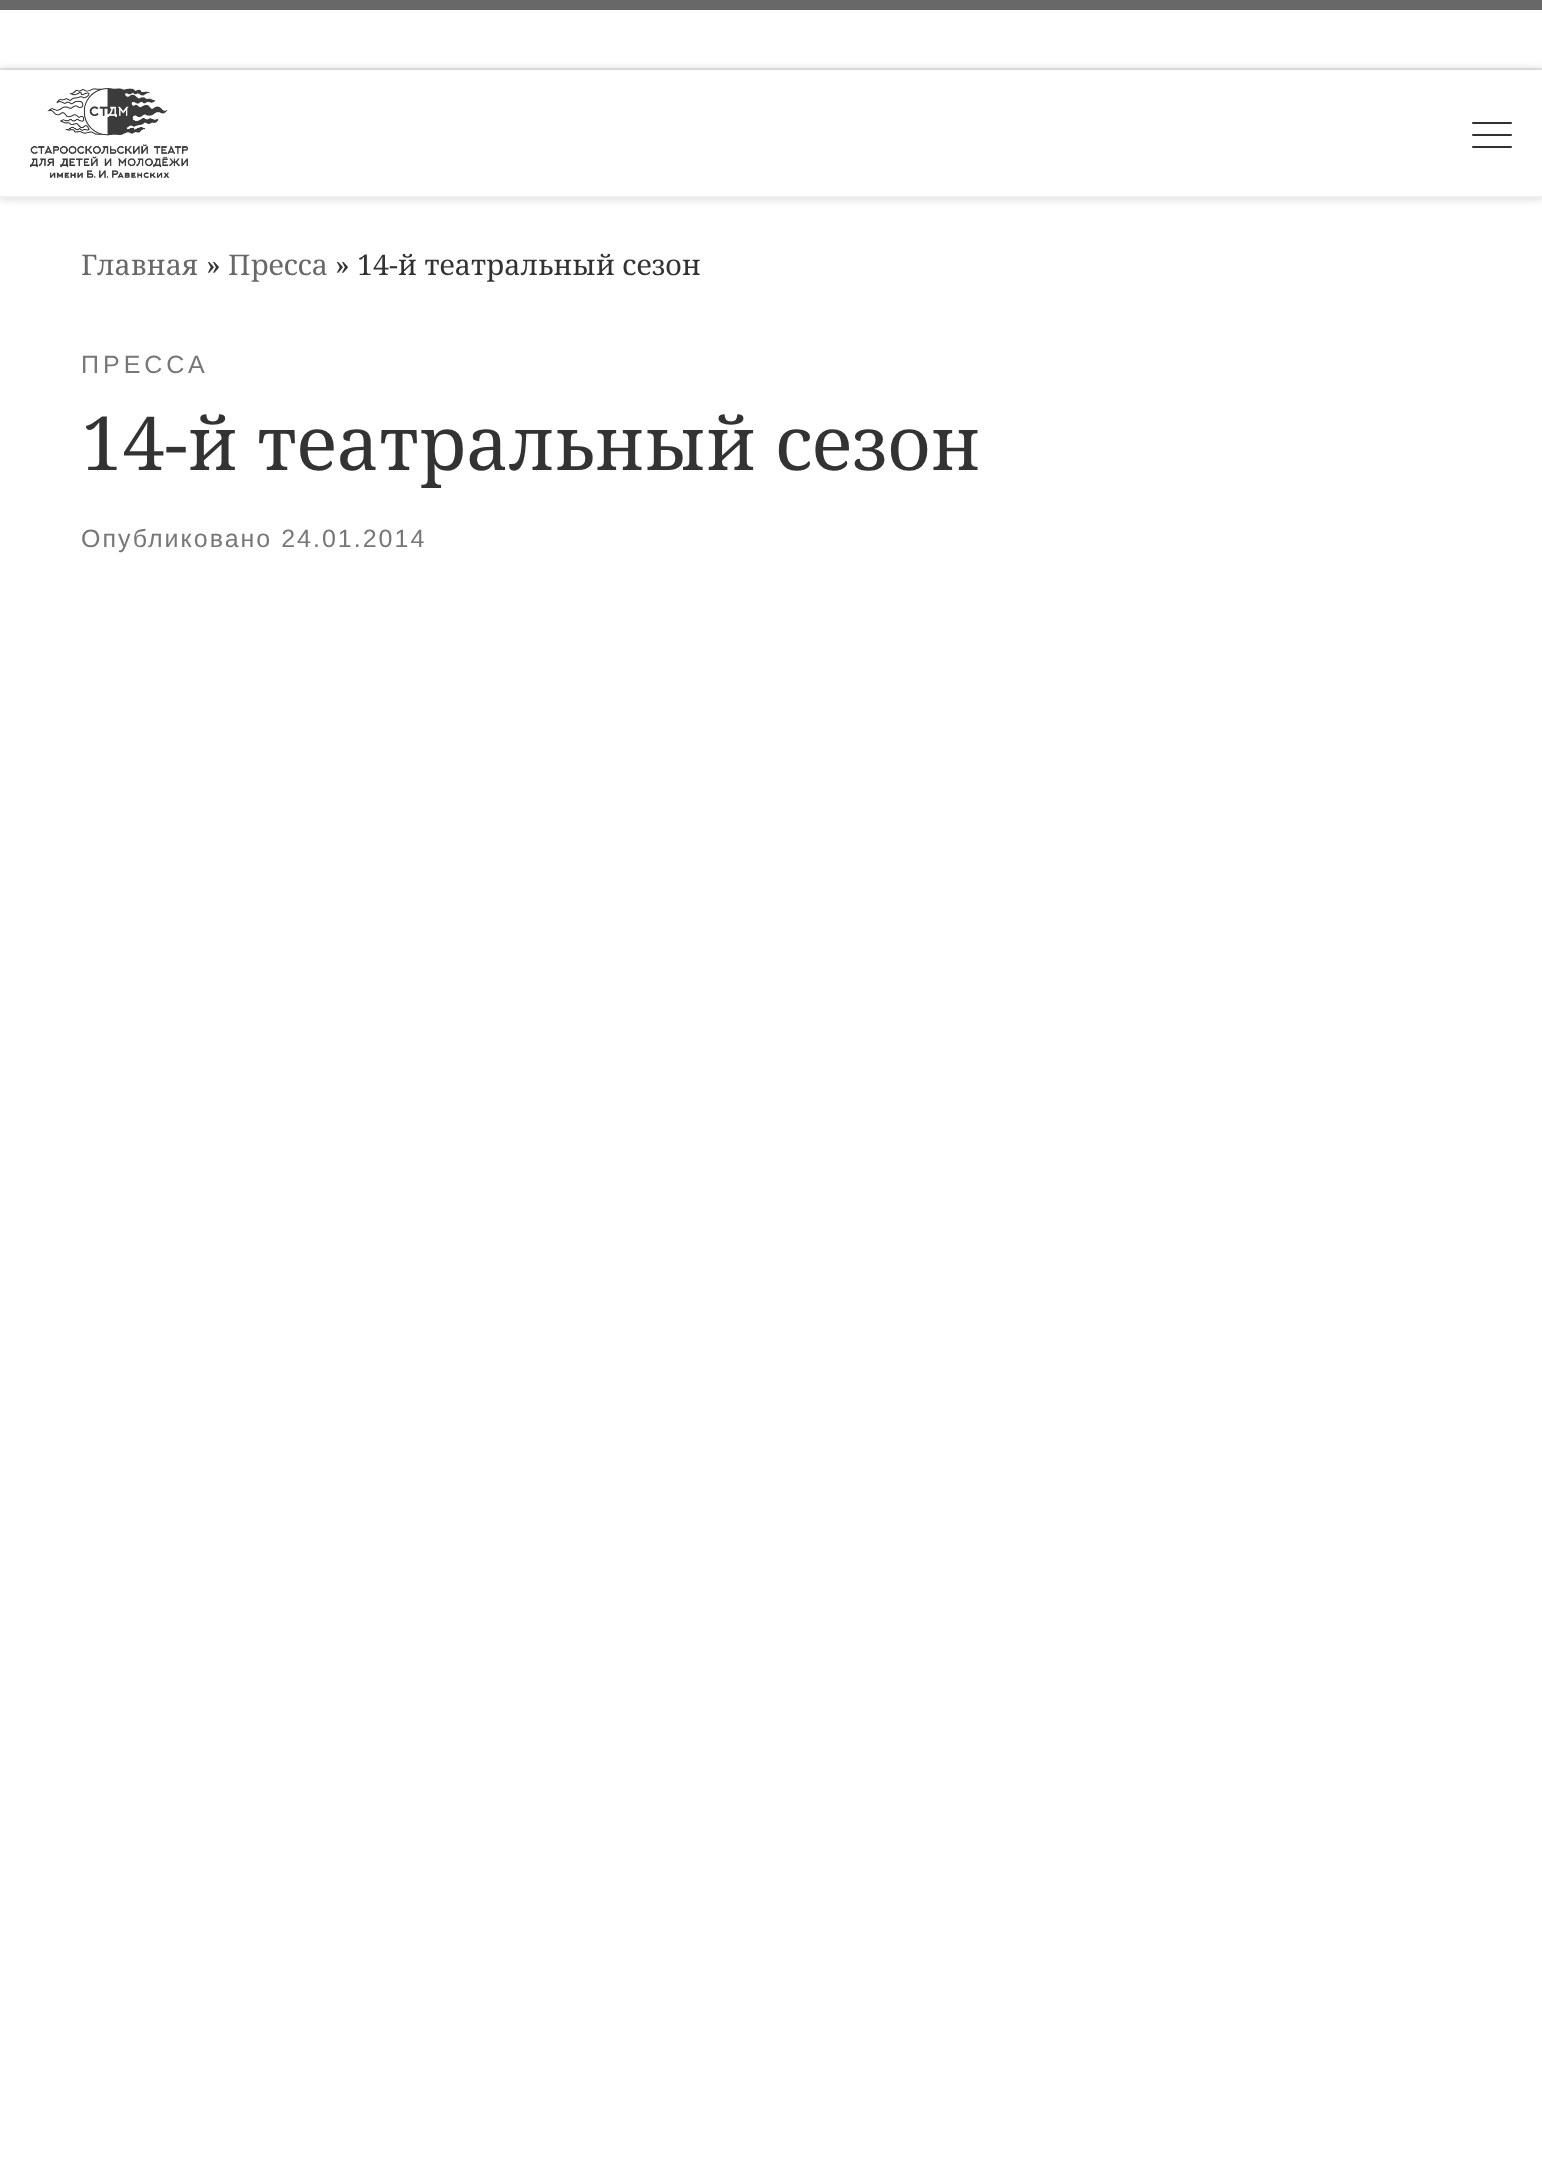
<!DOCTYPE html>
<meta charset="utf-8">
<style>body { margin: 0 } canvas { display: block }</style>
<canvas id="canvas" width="1542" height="2163"></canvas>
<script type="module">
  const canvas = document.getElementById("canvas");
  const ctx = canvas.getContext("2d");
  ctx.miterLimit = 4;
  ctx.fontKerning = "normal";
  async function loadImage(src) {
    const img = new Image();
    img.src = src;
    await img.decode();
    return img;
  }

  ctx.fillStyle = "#ffffff";
  ctx.fillRect(0, 0, 1542, 2163);
  ctx.fillStyle = "#686868";
  ctx.fillRect(0, 0, 1542, 10);
  ctx.fillStyle = "#ececec";
  ctx.fillRect(0, 68, 1542, 2);
  ctx.fillStyle = "rgba(0, 0, 0, 0.2)";
  ctx.filter = "blur(5px)";
  ctx.beginPath();
  ctx.rect(0, 70, 1542, 128);
  ctx.fill();
  ctx.filter = "none";
  ctx.fillStyle = "#ffffff";
  ctx.fillRect(0, 70, 1542, 126);
  ctx.drawImage(await loadImage("img1.png"), 30, 88, 158, 90);
  ctx.fillStyle = "#313131";
  ctx.beginPath();
  ctx.roundRect(1472, 122, 40, 2, 1);
  ctx.fill();
  ctx.beginPath();
  ctx.roundRect(1472, 134, 40, 2, 1);
  ctx.fill();
  ctx.beginPath();
  ctx.roundRect(1472, 146, 40, 2, 1);
  ctx.fill();
  ctx.fillStyle = "#f0f0f0";
  ctx.fillRect(0, 196, 1542, 2);
  ctx.font = "28.5px Noto Serif";
  ctx.fillStyle = "#686868";
  ctx.fillText("Главная", 81, 275);
  ctx.fillStyle = "#333333";
  ctx.fillText("»", 206, 275);
  ctx.fillStyle = "#686868";
  ctx.fillText("Пресса", 228, 275);
  ctx.fillStyle = "#333333";
  ctx.fillText("» 14-й театральный сезон", 335, 275);
  ctx.letterSpacing = "4px";
  ctx.font = "25px Liberation Sans";
  ctx.fillStyle = "#777777";
  ctx.fillText("ПРЕССА", 81, 373);
  ctx.letterSpacing = "0px";
  ctx.font = "74.6px Noto Serif";
  ctx.fillStyle = "#333333";
  ctx.fillText("14-й театральный сезон", 81, 470);
  ctx.letterSpacing = "2px";
  ctx.font = "25px Liberation Sans";
  ctx.fillStyle = "#777777";
  ctx.fillText("Опубликовано 24.01.2014", 81, 547);
</script>
